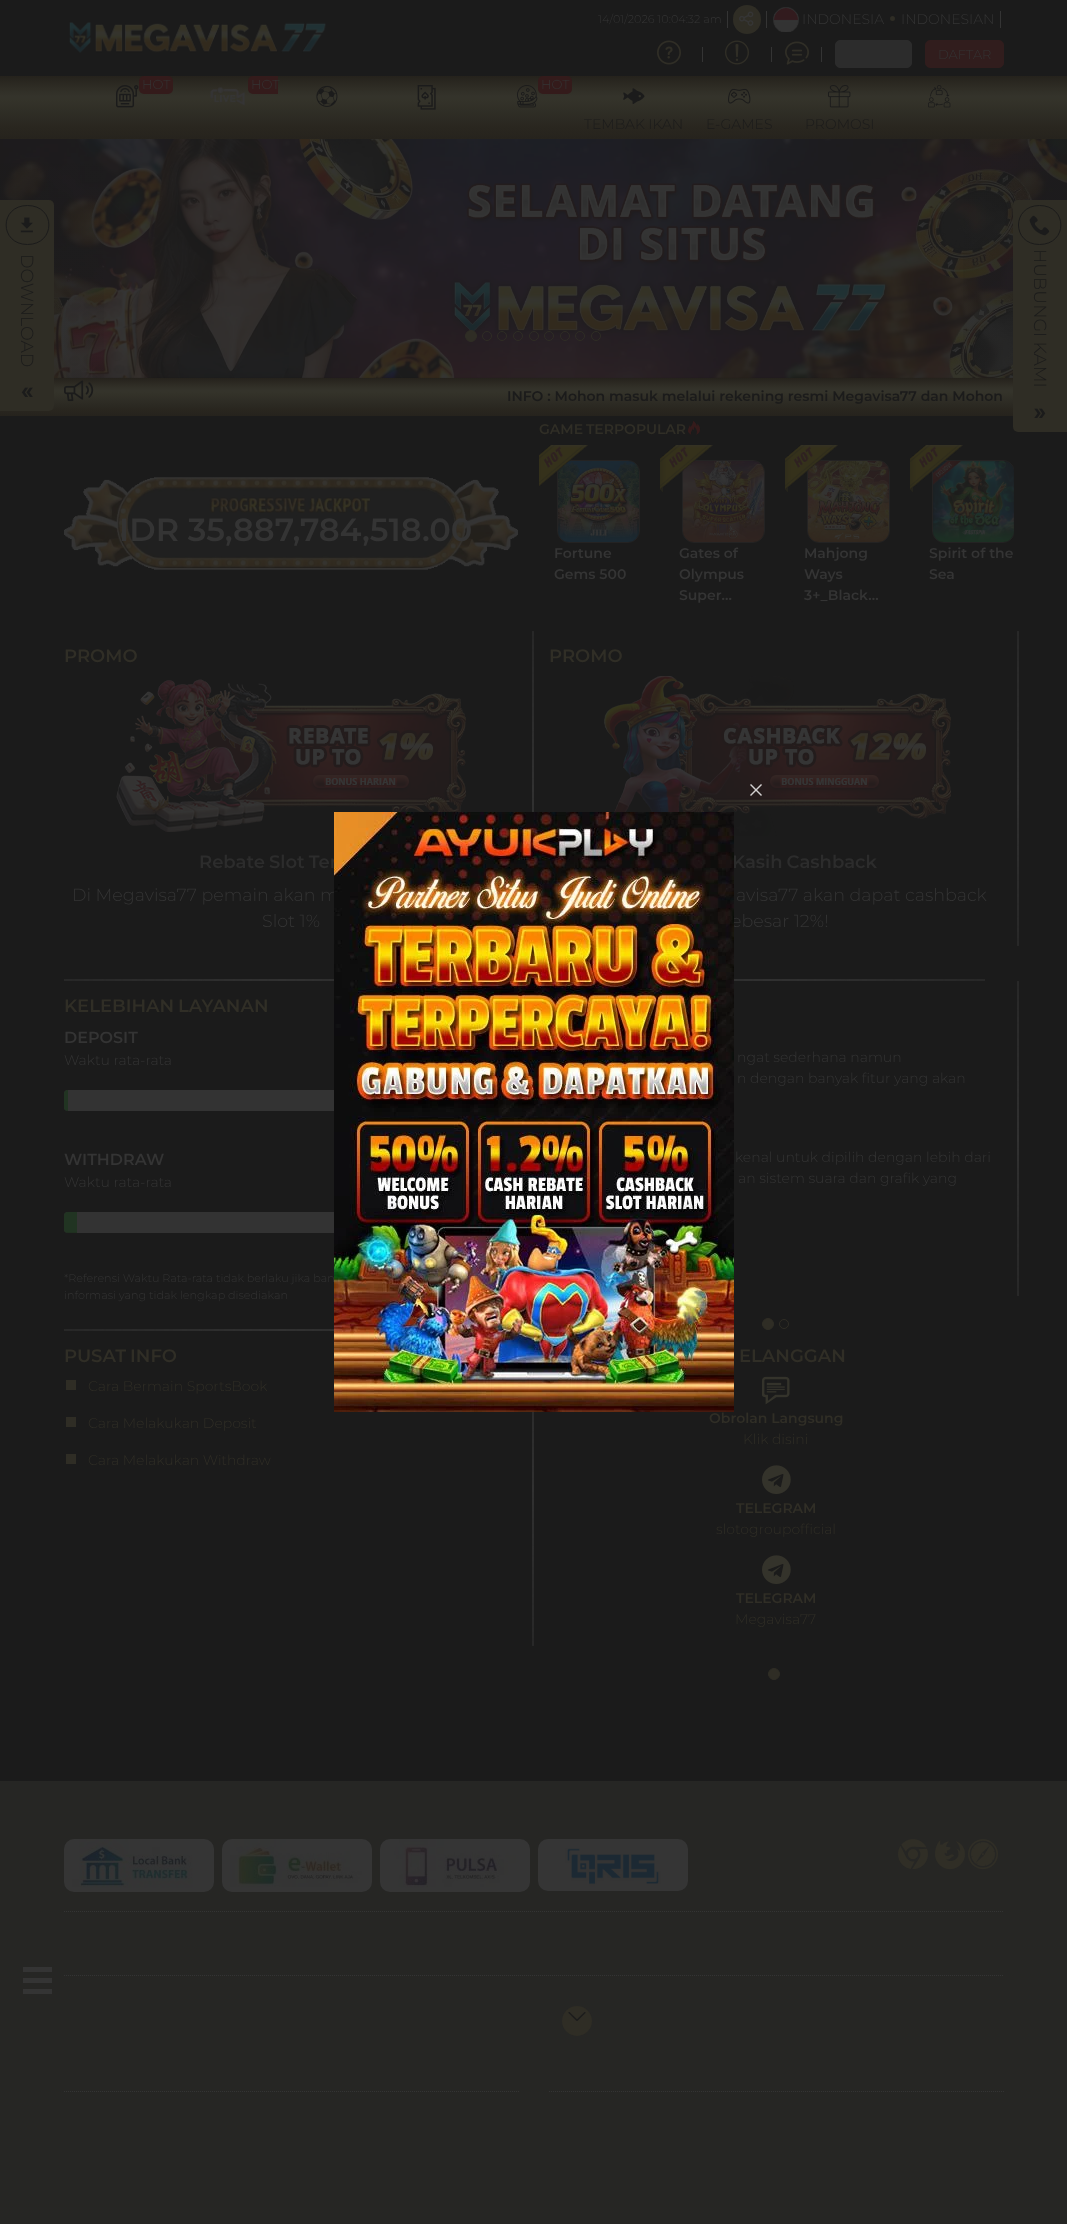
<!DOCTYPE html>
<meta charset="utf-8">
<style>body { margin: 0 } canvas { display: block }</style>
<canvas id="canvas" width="1067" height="2224"></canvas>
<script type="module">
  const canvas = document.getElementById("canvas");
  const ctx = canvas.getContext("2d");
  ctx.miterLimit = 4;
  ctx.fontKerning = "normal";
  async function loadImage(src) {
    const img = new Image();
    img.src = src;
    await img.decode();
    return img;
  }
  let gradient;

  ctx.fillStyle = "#1b1b1b";
  ctx.fillRect(0, 0, 1067, 2224);
  ctx.drawImage(await loadImage("img1.png"), 69, 21, 257, 32);
  ctx.font = "300 11.2px Montserrat";
  ctx.fillStyle = "#343434";
  ctx.fillText("14/01/2026 10:04:32 am", 598, 23);
  ctx.fillRect(727, 11, 1, 17);
  ctx.fillStyle = "#2f2d25";
  ctx.beginPath();
  ctx.roundRect(733, 5, 28, 29, 14);
  ctx.fill();
  ctx.drawImage(await loadImage("img2.png"), 739, 11, 15, 15);
  ctx.fillStyle = "#343434";
  ctx.fillRect(766, 11, 1, 17);
  ctx.drawImage(await loadImage("img3.png"), 773, 7, 26, 25);
  ctx.font = "300 14px Montserrat";
  ctx.fillText("INDONESIA", 802, 24);
  ctx.fillStyle = "#2f2d25";
  ctx.beginPath();
  ctx.arc(892.5, 18.5, 2.5, 0, Math.PI * 2);
  ctx.fill();
  ctx.fillStyle = "#343434";
  ctx.fillText("INDONESIAN", 901, 24);
  ctx.fillRect(1000, 11, 1, 17);
  ctx.drawImage(await loadImage("img4.png"), 657, 40, 24, 25);
  ctx.fillRect(702, 47, 1, 15);
  ctx.drawImage(await loadImage("img5.png"), 725, 40, 24, 25);
  ctx.fillRect(771, 47, 1, 15);
  ctx.drawImage(await loadImage("img6.png"), 785, 41, 24, 24);
  ctx.fillRect(821, 47, 1, 15);
  ctx.fillStyle = "#2c2c2c";
  ctx.beginPath();
  ctx.roundRect(835.5, 40.5, 76, 27, 4.5);
  ctx.fill();
  ctx.strokeStyle = "#2c2c2c";
  ctx.stroke();
  ctx.fillStyle = "#311d1d";
  ctx.beginPath();
  ctx.roundRect(925.5, 40.5, 78, 27, 4.5);
  ctx.fill();
  ctx.strokeStyle = "#311d1d";
  ctx.stroke();
  ctx.font = "300 13px Montserrat";
  ctx.fillStyle = "#343434";
  ctx.fillText("DAFTAR", 938, 59);
  gradient = ctx.createLinearGradient(534, 76, 534, 139);
  gradient.addColorStop(0, "#25221c");
  gradient.addColorStop(0.21, "#302e26");
  gradient.addColorStop(0.32, "#34332b");
  gradient.addColorStop(0.38, "#34332a");
  gradient.addColorStop(0.69, "#2c2a23");
  gradient.addColorStop(0.83, "#29261f");
  gradient.addColorStop(1, "#26231d");
  ctx.fillStyle = gradient;
  ctx.fillRect(0, 76, 1067, 63);
  ctx.drawImage(await loadImage("img7.png"), 116, 85, 23, 23);
  ctx.fillStyle = "#341b1b";
  ctx.beginPath();
  ctx.roundRect(139, 76, 34, 18, 5);
  ctx.fill();
  ctx.fillStyle = "#343434";
  ctx.fillText("HOT", 142, 89);
  ctx.save();
  ctx.beginPath();
  ctx.rect(178, 76, 100, 63);
  ctx.clip();
  ctx.fillStyle = "#341b1b";
  ctx.beginPath();
  ctx.roundRect(248, 76, 34, 18, 5);
  ctx.fill();
  ctx.restore();
  ctx.fillText("HOT", 251, 89);
  ctx.drawImage(await loadImage("img8.png"), 210, 87, 35, 19);
  ctx.drawImage(await loadImage("img9.png"), 316, 85, 22, 22);
  ctx.drawImage(await loadImage("img10.png"), 417, 85, 19, 25);
  ctx.drawImage(await loadImage("img11.png"), 517, 85, 21, 23);
  ctx.fillStyle = "#341b1b";
  ctx.beginPath();
  ctx.roundRect(538, 76, 34, 18, 5);
  ctx.fill();
  ctx.fillStyle = "#343434";
  ctx.fillText("HOT", 541, 89);
  ctx.drawImage(await loadImage("img12.png"), 928, 85, 23, 23);
  ctx.drawImage(await loadImage("img13.png"), 623, 88, 22, 16);
  ctx.font = "300 14px Montserrat";
  ctx.fillStyle = "#1b1b1b";
  ctx.fillText("TEMBAK IKAN", 584, 129);
  ctx.drawImage(await loadImage("img14.png"), 728, 88, 23, 16);
  ctx.fillText("E-GAMES", 706, 129);
  ctx.drawImage(await loadImage("img15.png"), 828, 85, 23, 23);
  ctx.fillText("PROMOSI", 805, 129);
  ctx.drawImage(await loadImage("img20.png"), 0, 139, 1067, 239);
  gradient = ctx.createLinearGradient(0, 259, 160, 259);
  gradient.addColorStop(0, "rgba(27, 27, 27, 0.25)");
  gradient.addColorStop(1, "rgba(27, 27, 27, 0)");
  ctx.fillStyle = gradient;
  ctx.fillRect(0, 163, 104, 215);
  gradient = ctx.createLinearGradient(534, 378, 534, 416);
  gradient.addColorStop(0, "#25221c");
  gradient.addColorStop(0.21, "#302e26");
  gradient.addColorStop(0.32, "#34332b");
  gradient.addColorStop(0.38, "#34332a");
  gradient.addColorStop(0.69, "#2c2a23");
  gradient.addColorStop(0.83, "#29261f");
  gradient.addColorStop(1, "#26231d");
  ctx.fillStyle = gradient;
  ctx.fillRect(0, 378, 1013, 38);
  ctx.fillStyle = "#2f2d25";
  ctx.beginPath();
  ctx.roundRect(0, 200, 54, 211, [0, 5, 5, 0]);
  ctx.fill();
  ctx.beginPath();
  ctx.moveTo(27.5, 205.5);
  ctx.bezierCurveTo(56, 205.5, 56, 244.5, 27.5, 244.5);
  ctx.bezierCurveTo(-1, 244.5, -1, 205.5, 27.5, 205.5);
  ctx.closePath();
  ctx.strokeStyle = "#1b1b1b";
  ctx.stroke();
  ctx.drawImage(await loadImage("img16.png"), 20, 217, 13, 16);
  ctx.font = "300 17.5px Montserrat";
  ctx.fillStyle = "#1b1b1b";
  ctx.save();
  ctx.translate(21, 254);
  ctx.rotate(90 * Math.PI / 180);
  ctx.fillText("DOWNLOAD", 0, 0);
  ctx.restore();
  ctx.drawImage(await loadImage("img17.png"), 21, 387, 12, 10);
  gradient = ctx.createLinearGradient(907, 259, 1067, 259);
  gradient.addColorStop(0, "rgba(27, 27, 27, 0)");
  gradient.addColorStop(1, "rgba(27, 27, 27, 0.25)");
  ctx.fillStyle = gradient;
  ctx.fillRect(963, 139, 104, 239);
  ctx.fillStyle = "#2f2d25";
  ctx.beginPath();
  ctx.roundRect(1013, 200, 54, 232, [5, 0, 0, 5]);
  ctx.fill();
  ctx.beginPath();
  ctx.moveTo(1039.5, 205.5);
  ctx.bezierCurveTo(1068, 205.5, 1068, 244.5, 1039.5, 244.5);
  ctx.bezierCurveTo(1011.5, 244.5, 1011.5, 205.5, 1039.5, 205.5);
  ctx.closePath();
  ctx.stroke();
  ctx.drawImage(await loadImage("img18.png"), 1029, 215, 21, 21);
  ctx.fillStyle = "#1b1b1b";
  ctx.save();
  ctx.translate(1034, 249);
  ctx.rotate(90 * Math.PI / 180);
  ctx.fillText("HUBUNGI KAMI", 0, 0);
  ctx.restore();
  ctx.drawImage(await loadImage("img19.png"), 1034, 408, 12, 10);
  ctx.fillStyle = "#2f2d25";
  ctx.beginPath();
  ctx.arc(471, 336, 5.5, 0, Math.PI * 2);
  ctx.fill();
  ctx.strokeStyle = "#2f2d25";
  ctx.stroke();
  ctx.beginPath();
  ctx.arc(487, 336, 4.5, 0, Math.PI * 2);
  ctx.stroke();
  ctx.beginPath();
  ctx.arc(502, 336, 4.5, 0, Math.PI * 2);
  ctx.stroke();
  ctx.beginPath();
  ctx.arc(518, 336, 4.5, 0, Math.PI * 2);
  ctx.stroke();
  ctx.beginPath();
  ctx.arc(534, 336, 4.5, 0, Math.PI * 2);
  ctx.stroke();
  ctx.beginPath();
  ctx.arc(549, 336, 4.5, 0, Math.PI * 2);
  ctx.stroke();
  ctx.beginPath();
  ctx.arc(565, 336, 4.5, 0, Math.PI * 2);
  ctx.stroke();
  ctx.beginPath();
  ctx.arc(580, 336, 4.5, 0, Math.PI * 2);
  ctx.stroke();
  ctx.beginPath();
  ctx.arc(596, 336, 4.5, 0, Math.PI * 2);
  ctx.stroke();
  ctx.drawImage(await loadImage("img21.png"), 64, 380, 30, 22);
  ctx.font = "600 14px Montserrat";
  ctx.fillStyle = "#1b1b1b";
  ctx.fillText("INFO : Mohon masuk melalui rekening resmi Megavisa77 dan Mohon", 507, 401);
  ctx.drawImage(await loadImage("img22.png"), 64, 477, 454, 93);
  ctx.font = "600 32px Montserrat";
  ctx.fillStyle = "#343434";
  ctx.fillText("IDR 35,887,784,518.00", 119, 541);
  ctx.wordSpacing = "-1px";
  ctx.font = "600 14px Montserrat";
  ctx.fillStyle = "#302e26";
  ctx.fillText("GAME TERPOPULAR", 539, 434);
  ctx.drawImage(await loadImage("img23.png"), 688, 421, 13, 14);
  ctx.beginPath();
  ctx.roundRect(557.5, 460.5, 82, 82, 11.5);
  ctx.strokeStyle = "#242323";
  ctx.stroke();
  ctx.drawImage(await loadImage("img29.png"), 558, 461, 81, 81);
  ctx.drawImage(await loadImage("img24.png"), 539, 445, 49, 42);
  ctx.beginPath();
  ctx.roundRect(682.5, 460.5, 82, 82, 11.5);
  ctx.stroke();
  ctx.drawImage(await loadImage("img31.png"), 683, 461, 81, 81);
  ctx.drawImage(await loadImage("img25.png"), 660, 445, 53, 47);
  ctx.beginPath();
  ctx.roundRect(807.5, 460.5, 82, 82, 11.5);
  ctx.stroke();
  ctx.drawImage(await loadImage("img33.png"), 808, 461, 81, 81);
  ctx.drawImage(await loadImage("img26.png"), 785, 445, 53, 47);
  ctx.save();
  ctx.beginPath();
  ctx.rect(539, 445, 475, 180);
  ctx.clip();
  ctx.beginPath();
  ctx.roundRect(932.5, 460.5, 82, 82, 11.5);
  ctx.stroke();
  ctx.restore();
  ctx.drawImage(await loadImage("img35.png"), 933, 461, 81, 81);
  ctx.drawImage(await loadImage("img27.png"), 910, 445, 53, 47);
  ctx.drawImage(await loadImage("img28.png"), 539, 445, 49, 42);
  ctx.wordSpacing = "0px";
  ctx.fillStyle = "#343434";
  ctx.fillText("Fortune", 554, 558);
  ctx.fillText("Gems 500", 554, 579);
  ctx.drawImage(await loadImage("img30.png"), 660, 445, 53, 47);
  ctx.fillText("Gates of", 679, 558);
  ctx.fillText("Olympus", 679, 579);
  ctx.fillText("Super…", 679, 600);
  ctx.drawImage(await loadImage("img32.png"), 785, 445, 53, 47);
  ctx.fillText("Mahjong", 804, 558);
  ctx.fillText("Ways", 804, 579);
  ctx.fillText("3+_Black…", 804, 600);
  ctx.drawImage(await loadImage("img34.png"), 910, 445, 53, 47);
  ctx.fillText("Spirit of the", 929, 558);
  ctx.fillText("Sea", 929, 579);
  ctx.font = "600 18px Montserrat";
  ctx.fillStyle = "#302e26";
  ctx.fillText("PROMO", 64, 662);
  ctx.drawImage(await loadImage("img36.png"), 532, 631, 2, 181);
  ctx.drawImage(await loadImage("img37.png"), 116, 679, 350, 153);
  ctx.wordSpacing = "-1px";
  ctx.fillStyle = "#2c2c2c";
  ctx.fillText("Rebate Slot Ter", 199, 868);
  ctx.wordSpacing = "0px";
  ctx.font = "300 17.5px Montserrat";
  ctx.fillStyle = "#343434";
  ctx.fillText("Di Megavisa77 pemain akan m", 72, 901);
  ctx.fillText("Slot 1%", 262, 927);
  ctx.drawImage(await loadImage("img38.png"), 64, 979, 270, 2);
  ctx.font = "600 18px Montserrat";
  ctx.fillStyle = "#302e26";
  ctx.fillText("PROMO", 549, 662);
  ctx.drawImage(await loadImage("img39.png"), 1017, 631, 2, 315);
  ctx.drawImage(await loadImage("img40.png"), 604, 676, 347, 160);
  ctx.wordSpacing = "-1px";
  ctx.fillStyle = "#2c2c2c";
  ctx.fillText("Kasih Cashback", 732, 868);
  ctx.wordSpacing = "0px";
  ctx.font = "300 17.5px Montserrat";
  ctx.fillStyle = "#343434";
  ctx.fillText("avisa77 akan dapat cashback", 736, 901);
  ctx.fillText("ebesar 12%!", 731, 927);
  ctx.drawImage(await loadImage("img41.png"), 734, 979, 251, 2);
  ctx.wordSpacing = "-1px";
  ctx.font = "600 18px Montserrat";
  ctx.fillStyle = "#302e26";
  ctx.fillText("KELEBIHAN LAYANAN", 64, 1012);
  ctx.wordSpacing = "0px";
  ctx.font = "600 16px Montserrat";
  ctx.fillStyle = "#343434";
  ctx.fillText("DEPOSIT", 64, 1043);
  ctx.font = "300 14px Montserrat";
  ctx.fillText("Waktu rata-rata", 64, 1065);
  ctx.fillStyle = "#333333";
  ctx.beginPath();
  ctx.roundRect(64, 1090, 455, 21, 4);
  ctx.fill();
  ctx.fillStyle = "#213422";
  ctx.beginPath();
  ctx.roundRect(64, 1090, 4, 21, [4, 0, 0, 4]);
  ctx.fill();
  ctx.fillStyle = "rgba(27, 27, 27, 0.15)";
  ctx.fillRect(64, 1110, 4, 1);
  ctx.font = "600 16px Montserrat";
  ctx.fillStyle = "#343434";
  ctx.fillText("WITHDRAW", 64, 1165);
  ctx.font = "300 14px Montserrat";
  ctx.fillText("Waktu rata-rata", 64, 1187);
  ctx.fillStyle = "#333333";
  ctx.beginPath();
  ctx.roundRect(64, 1212, 455, 21, 4);
  ctx.fill();
  ctx.fillStyle = "#213422";
  ctx.beginPath();
  ctx.roundRect(64, 1212, 13, 21, [4, 0, 0, 4]);
  ctx.fill();
  ctx.fillStyle = "rgba(27, 27, 27, 0.15)";
  ctx.fillRect(64, 1232, 13, 1);
  ctx.font = "300 11.2px Montserrat";
  ctx.fillStyle = "#343434";
  ctx.fillText("*Referensi Waktu Rata-rata tidak berlaku jika ban", 64, 1282);
  ctx.fillText("informasi yang tidak lengkap disediakan", 64, 1299);
  ctx.drawImage(await loadImage("img42.png"), 64, 1329, 270, 2);
  ctx.font = "300 14px Montserrat";
  ctx.fillText("ngat sederhana namun", 737, 1062);
  ctx.fillText("n dengan banyak fitur yang akan", 737, 1083);
  ctx.fillText("kenal untuk dipilih dengan lebih dari", 735, 1162);
  ctx.fillText("an sistem suara dan grafik yang", 738, 1183);
  ctx.fillStyle = "#2f2d25";
  ctx.beginPath();
  ctx.arc(768, 1324, 5.5, 0, Math.PI * 2);
  ctx.fill();
  ctx.strokeStyle = "#2f2d25";
  ctx.stroke();
  ctx.beginPath();
  ctx.arc(784, 1324, 4.5, 0, Math.PI * 2);
  ctx.stroke();
  ctx.drawImage(await loadImage("img43.png"), 1017, 981, 2, 315);
  ctx.wordSpacing = "-1px";
  ctx.font = "600 18px Montserrat";
  ctx.fillStyle = "#302e26";
  ctx.fillText("PUSAT INFO", 64, 1362);
  ctx.wordSpacing = "0px";
  ctx.font = "300 14px Montserrat";
  ctx.fillText("Cara Bermain SportsBook", 88, 1391);
  ctx.fillStyle = "#2f2d25";
  ctx.fillRect(66, 1380, 10, 10);
  ctx.fillRect(66, 1417, 10, 10);
  ctx.fillStyle = "#302e26";
  ctx.fillText("Cara Melakukan Deposit", 88, 1428);
  ctx.fillStyle = "#2f2d25";
  ctx.fillRect(66, 1454, 10, 10);
  ctx.fillStyle = "#302e26";
  ctx.fillText("Cara Melakukan Withdraw", 88, 1465);
  ctx.drawImage(await loadImage("img44.png"), 532, 1412, 2, 234);
  ctx.wordSpacing = "-1px";
  ctx.font = "600 18px Montserrat";
  ctx.fillText("ELANGGAN", 739, 1362);
  ctx.drawImage(await loadImage("img45.png"), 762, 1376, 28, 29);
  ctx.wordSpacing = "0px";
  ctx.font = "600 14px Montserrat";
  ctx.fillText("Obrolan Langsung", 709, 1423);
  ctx.font = "300 14px Montserrat";
  ctx.fillText("Klik disini", 743, 1444);
  ctx.drawImage(await loadImage("img46.png"), 762, 1465, 29, 29);
  ctx.font = "600 14px Montserrat";
  ctx.fillText("TELEGRAM", 736, 1513);
  ctx.font = "300 14px Montserrat";
  ctx.fillText("slotogroupofficial", 716, 1534);
  ctx.drawImage(await loadImage("img46.png"), 762, 1555, 29, 29);
  ctx.font = "600 14px Montserrat";
  ctx.fillText("TELEGRAM", 736, 1603);
  ctx.font = "300 14px Montserrat";
  ctx.fillText("Megavisa77", 735, 1624);
  ctx.fillStyle = "#2f2d25";
  ctx.beginPath();
  ctx.arc(774, 1674, 5.5, 0, Math.PI * 2);
  ctx.fill();
  ctx.stroke();
  ctx.drawImage(await loadImage("img47.png"), 750, 784, 12, 12);
  ctx.drawImage(await loadImage("img48.png"), 334, 812, 400, 600);
  ctx.fillStyle = "#262624";
  ctx.fillRect(0, 1781, 1067, 443);
  ctx.drawImage(await loadImage("img49.png"), 64, 1839, 150, 53);
  ctx.drawImage(await loadImage("img50.png"), 222, 1839, 150, 53);
  ctx.drawImage(await loadImage("img51.png"), 380, 1839, 150, 53);
  ctx.drawImage(await loadImage("img52.png"), 538, 1839, 150, 52);
  ctx.drawImage(await loadImage("img53.png"), 898, 1839, 30, 31);
  ctx.drawImage(await loadImage("img54.png"), 935, 1840, 30, 30);
  ctx.drawImage(await loadImage("img55.png"), 968, 1839, 30, 31);
  ctx.beginPath();
  ctx.moveTo(64, 1911.5);
  ctx.lineTo(1004, 1911.5);
  ctx.strokeStyle = "#343434";
  ctx.setLineDash([1, 1]);
  ctx.stroke();
  ctx.beginPath();
  ctx.moveTo(64, 1975.5);
  ctx.lineTo(1004, 1975.5);
  ctx.stroke();
  ctx.fillStyle = "#2f2d25";
  ctx.beginPath();
  ctx.arc(577, 2021, 15, 0, Math.PI * 2);
  ctx.fill();
  ctx.drawImage(await loadImage("img56.png"), 568, 2012, 18, 9);
  ctx.beginPath();
  ctx.moveTo(64, 2091.5);
  ctx.lineTo(519, 2091.5);
  ctx.stroke();
  ctx.beginPath();
  ctx.moveTo(549, 2091.5);
  ctx.lineTo(1004, 2091.5);
  ctx.stroke();
  ctx.fillStyle = "#343434";
  ctx.fillRect(23, 1967, 29, 5);
  ctx.fillRect(23, 1978, 29, 5);
  ctx.fillRect(23, 1989, 29, 5);
</script>
